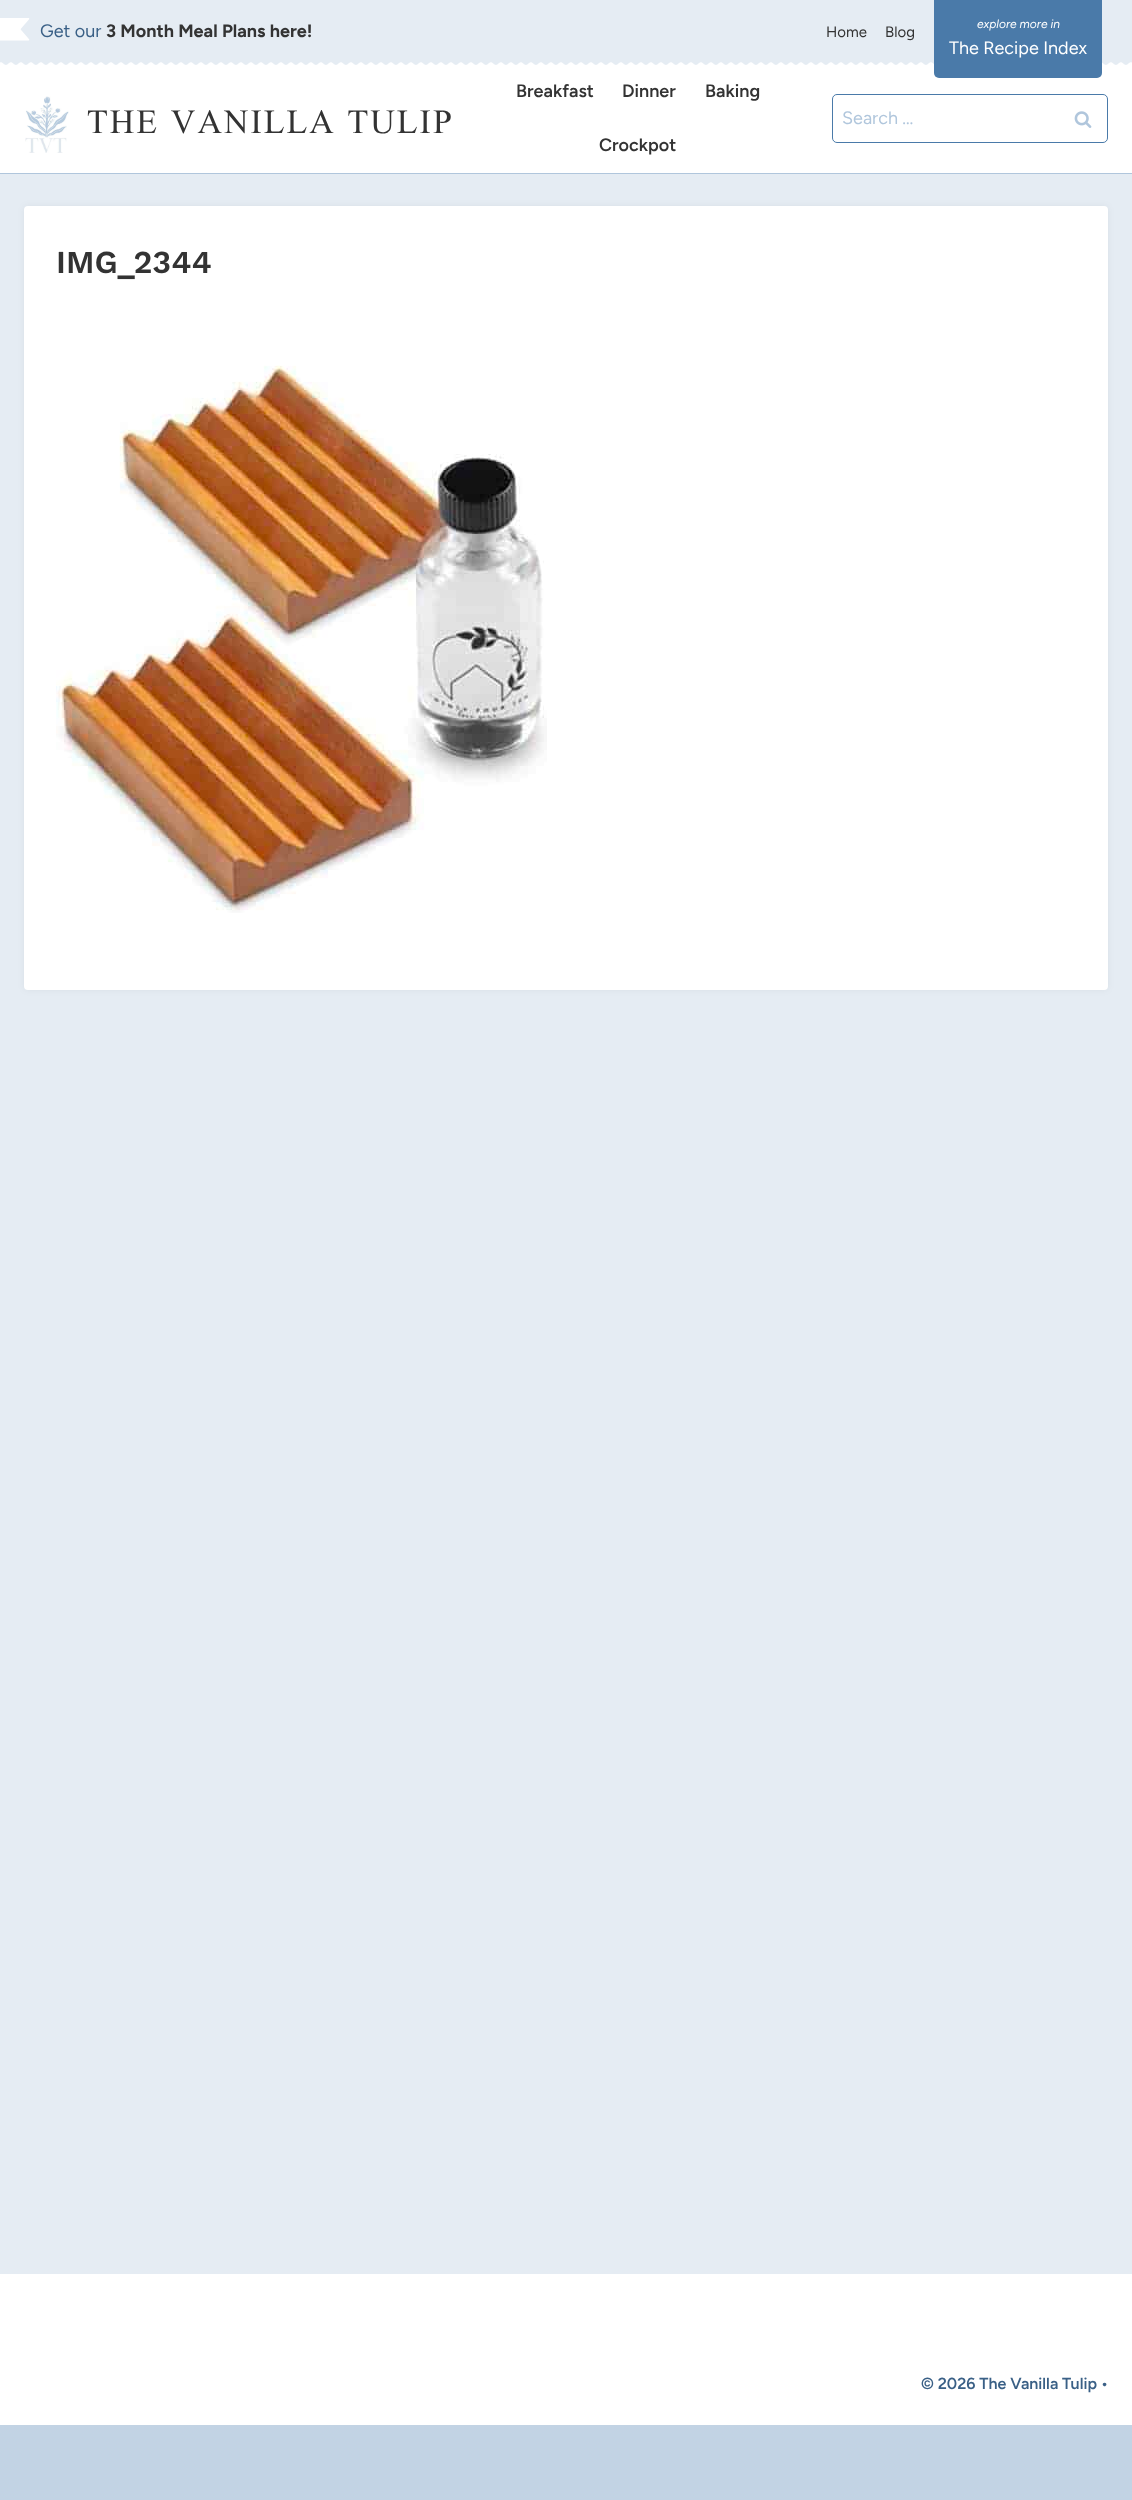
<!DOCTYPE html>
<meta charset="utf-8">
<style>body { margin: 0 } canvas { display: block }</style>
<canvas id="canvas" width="1132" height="2500"></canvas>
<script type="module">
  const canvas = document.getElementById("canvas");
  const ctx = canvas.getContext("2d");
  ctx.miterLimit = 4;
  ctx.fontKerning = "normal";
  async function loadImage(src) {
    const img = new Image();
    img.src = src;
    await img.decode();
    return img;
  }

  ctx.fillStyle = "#e5ecf3";
  ctx.fillRect(0, 0, 1132, 2500);
  ctx.fillStyle = "#ffffff";
  ctx.fillRect(0, 65, 1132, 108);
  ctx.drawImage(await loadImage("img1.png"), 0, 62, 1132, 3);
  ctx.drawImage(await loadImage("img2.png"), 0, 18, 30, 23);
  ctx.font = "18px Figtree";
  ctx.fillStyle = "#3a6086";
  ctx.fillText("Get our", 40, 37);
  ctx.font = "bold 18px Figtree";
  ctx.fillStyle = "#333333";
  ctx.fillText("3 Month Meal Plans here!", 106, 37);
  ctx.font = "15px Figtree";
  ctx.fillText("Home", 826, 37);
  ctx.fillText("Blog", 885, 37);
  ctx.fillStyle = "#4a7aa9";
  ctx.beginPath();
  ctx.roundRect(934, 0, 168, 78, [0, 0, 5, 5]);
  ctx.fill();
  ctx.font = "italic 12px Figtree";
  ctx.fillStyle = "#ffffff";
  ctx.fillText("explore more in", 977, 28);
  ctx.font = "18px Figtree";
  ctx.fillText("The Recipe Index", 949, 54);
  ctx.fillStyle = "#b0c6dc";
  ctx.fillRect(0, 173, 1132, 1);
  ctx.drawImage(await loadImage("img3.png"), 25, 96, 44, 57);
  ctx.letterSpacing = "2px";
  ctx.font = "34px Tai Heritage Pro";
  ctx.fillStyle = "#333333";
  ctx.fillText("THE VANILLA TULIP", 87, 133);
  ctx.letterSpacing = "0px";
  ctx.font = "600 18px Figtree";
  ctx.fillText("Breakfast", 516, 97);
  ctx.fillText("Dinner", 622, 97);
  ctx.fillText("Baking", 705, 97);
  ctx.fillText("Crockpot", 599, 151);
  ctx.beginPath();
  ctx.roundRect(832.5, 94.5, 275, 48, 4.5);
  ctx.strokeStyle = "#4a7aa9";
  ctx.stroke();
  ctx.font = "18px Figtree";
  ctx.fillStyle = "#b0c6dc";
  ctx.fillText("Search …", 842, 124);
  ctx.drawImage(await loadImage("img4.png"), 1074, 111, 18, 17);
  ctx.fillStyle = "rgba(0, 0, 0, 0.05)";
  ctx.filter = "blur(3.5px)";
  ctx.beginPath();
  ctx.roundRect(24, 206, 1084, 784, 4);
  ctx.fill();
  ctx.filter = "none";
  ctx.fillStyle = "#ffffff";
  ctx.beginPath();
  ctx.roundRect(24, 206, 1084, 784, 4);
  ctx.fill();
  ctx.font = "600 32px Work Sans";
  ctx.fillStyle = "#333333";
  ctx.fillText("IMG_2344", 56, 273);
  ctx.drawImage(await loadImage("img5.png"), 56, 365, 491, 548);
  ctx.fillStyle = "#ffffff";
  ctx.fillRect(0, 2274, 1132, 151);
  ctx.font = "600 16px Figtree";
  ctx.fillStyle = "#3a6086";
  ctx.fillText("© 2026 The Vanilla Tulip •", 921, 2389);
  ctx.fillStyle = "#c2d3e4";
  ctx.fillRect(0, 2425, 1132, 75);
</script>
